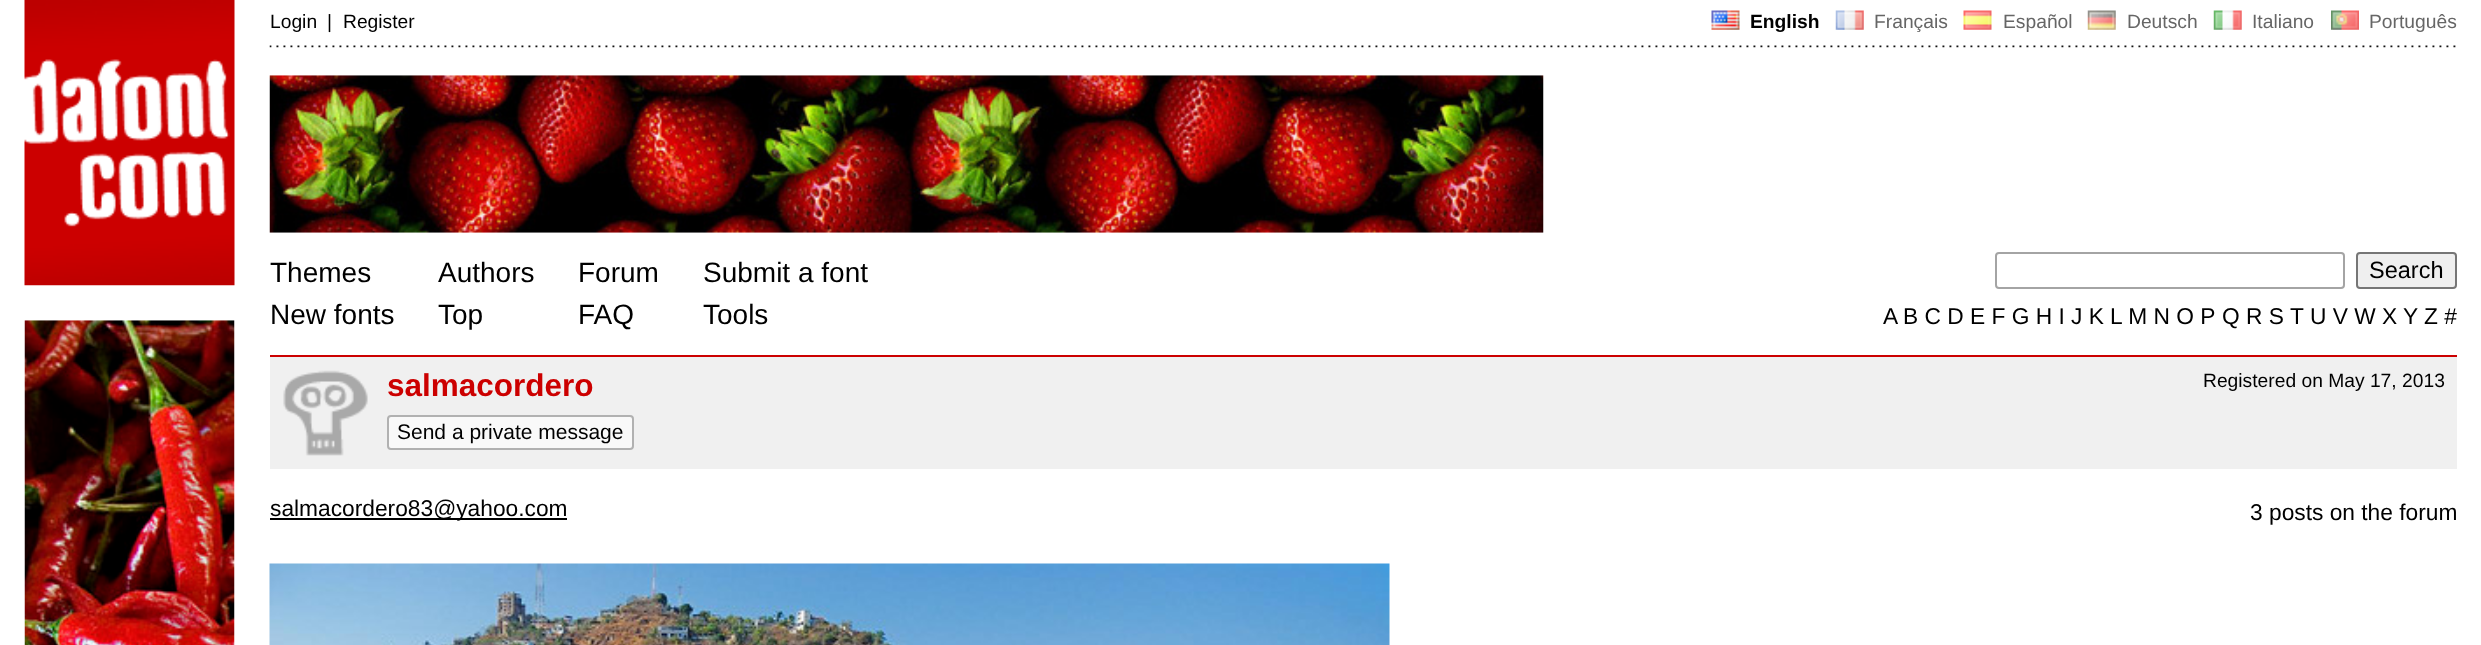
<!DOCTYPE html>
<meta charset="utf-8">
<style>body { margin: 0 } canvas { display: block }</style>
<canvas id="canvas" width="2481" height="645"></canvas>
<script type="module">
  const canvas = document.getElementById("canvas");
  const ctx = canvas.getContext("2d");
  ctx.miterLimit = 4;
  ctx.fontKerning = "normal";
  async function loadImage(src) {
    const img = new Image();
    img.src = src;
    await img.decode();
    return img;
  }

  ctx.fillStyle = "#ffffff";
  ctx.fillRect(0, 0, 2481, 645);
  ctx.drawImage(await loadImage("img1.png"), 24, 0, 211, 286);
  ctx.font = "19.25px Liberation Sans";
  ctx.fillStyle = "#000000";
  ctx.fillText("Login", 270, 28);
  ctx.fillText("|", 327, 28);
  ctx.fillText("Register", 343, 28);
  ctx.drawImage(await loadImage("img2.png"), 1711, 10, 29, 20);
  ctx.font = "bold 19.25px Liberation Sans";
  ctx.fillText("English", 1750, 28);
  ctx.drawImage(await loadImage("img3.png"), 1835, 10, 29, 20);
  ctx.font = "19.25px Liberation Sans";
  ctx.fillStyle = "#666666";
  ctx.fillText("Français", 1874, 28);
  ctx.drawImage(await loadImage("img4.png"), 1963, 10, 29, 20);
  ctx.fillText("Español", 2003, 28);
  ctx.drawImage(await loadImage("img5.png"), 2087, 10, 29, 20);
  ctx.fillText("Deutsch", 2127, 28);
  ctx.drawImage(await loadImage("img6.png"), 2213, 10, 29, 20);
  ctx.fillText("Italiano", 2252, 28);
  ctx.drawImage(await loadImage("img7.png"), 2331, 10, 28, 20);
  ctx.fillText("Português", 2369, 28);
  ctx.drawImage(await loadImage("img8.png"), 269, 45, 2187, 3);
  ctx.drawImage(await loadImage("img9.png"), 269, 75, 1275, 158);
  ctx.font = "28px Liberation Sans";
  ctx.fillStyle = "#000000";
  ctx.fillText("Themes", 270, 282);
  ctx.fillText("New fonts", 270, 324);
  ctx.fillText("Authors", 438, 282);
  ctx.fillText("Top", 438, 324);
  ctx.fillText("Forum", 578, 282);
  ctx.fillText("FAQ", 578, 324);
  ctx.fillText("Submit a font", 703, 282);
  ctx.fillText("Tools", 703, 324);
  ctx.beginPath();
  ctx.roundRect(1996, 253, 348, 35, 3);
  ctx.strokeStyle = "#a4a4a4";
  ctx.lineWidth = 2;
  ctx.stroke();
  ctx.fillStyle = "#efefef";
  ctx.beginPath();
  ctx.roundRect(2357, 253, 99, 35, 3);
  ctx.fill();
  ctx.strokeStyle = "#767676";
  ctx.stroke();
  ctx.font = "23.5px Liberation Sans";
  ctx.fillStyle = "#000000";
  ctx.fillText("Search", 2369, 278);
  ctx.font = "22.75px Liberation Sans";
  ctx.fillText("A", 1883, 324);
  ctx.fillText("B C D E F G H I J K", 1903, 324);
  ctx.fillText("L M N O P", 2110, 324);
  ctx.fillText("Q R S", 2222, 324);
  ctx.fillText("T", 2290, 324);
  ctx.fillText("U V W X", 2310, 324);
  ctx.fillText("Y", 2403, 324);
  ctx.fillText("Z #", 2424, 324);
  ctx.drawImage(await loadImage("img10.png"), 24, 320, 211, 325);
  ctx.fillStyle = "#f0f0f0";
  ctx.fillRect(270, 357, 2187, 112);
  ctx.fillStyle = "#cc0000";
  ctx.fillRect(270, 355, 2187, 2);
  ctx.drawImage(await loadImage("img11.png"), 283, 370, 85, 86);
  ctx.font = "bold 31.5px Liberation Sans";
  ctx.fillText("salmacordero", 387, 396);
  ctx.font = "19.25px Liberation Sans";
  ctx.fillStyle = "#000000";
  ctx.fillText("Registered on May 17, 2013", 2203, 387);
  ctx.fillStyle = "#f9f9f9";
  ctx.beginPath();
  ctx.roundRect(388, 416, 245, 33, 3);
  ctx.fill();
  ctx.strokeStyle = "#b1b1b1";
  ctx.stroke();
  ctx.font = "21px Liberation Sans";
  ctx.fillStyle = "#000000";
  ctx.fillText("Send a private message", 397, 439);
  ctx.fillRect(270, 518, 297, 2);
  ctx.font = "22.75px Liberation Sans";
  ctx.fillText("salmacordero83@yahoo.com", 270, 516);
  ctx.fillText("3 posts on the forum", 2250, 520);
  ctx.drawImage(await loadImage("img12.png"), 269, 563, 1121, 82);
</script>
